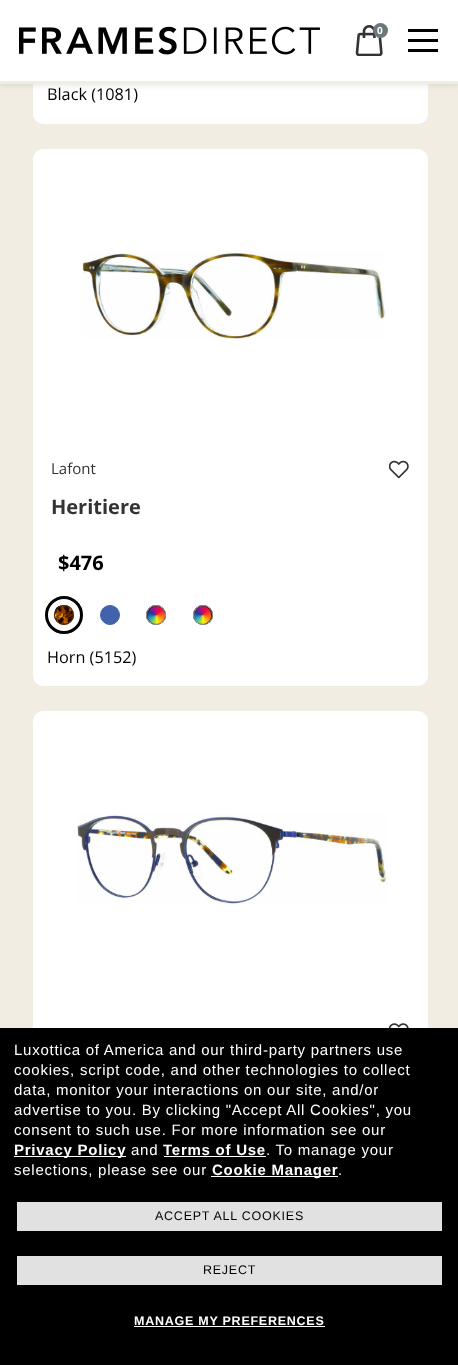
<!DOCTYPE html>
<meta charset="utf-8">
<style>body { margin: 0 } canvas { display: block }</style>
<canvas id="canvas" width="458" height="1365"></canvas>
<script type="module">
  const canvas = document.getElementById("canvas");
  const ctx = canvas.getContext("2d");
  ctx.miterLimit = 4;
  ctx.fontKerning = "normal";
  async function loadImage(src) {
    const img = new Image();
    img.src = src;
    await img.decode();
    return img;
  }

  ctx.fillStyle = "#f1ede3";
  ctx.fillRect(0, 0, 458, 1365);
  ctx.fillStyle = "#ffffff";
  ctx.beginPath();
  ctx.roundRect(33, -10, 395, 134, 10);
  ctx.fill();
  ctx.fillStyle = "rgba(0, 0, 0, 0.1)";
  ctx.filter = "blur(3px)";
  ctx.beginPath();
  ctx.rect(0, -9, 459, 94);
  ctx.fill();
  ctx.filter = "none";
  ctx.fillStyle = "#ffffff";
  ctx.fillRect(0, 0, 458, 81);
  ctx.drawImage(await loadImage("img1.png"), 19, 26, 301, 29);
  ctx.drawImage(await loadImage("img2.png"), 355, 25, 28, 31);
  ctx.fillStyle = "#6b777b";
  ctx.beginPath();
  ctx.arc(380.5, 30.5, 7.5, 0, Math.PI * 2);
  ctx.fill();
  ctx.font = "bold 10px Open Sans";
  ctx.fillStyle = "#ffffff";
  ctx.fillText("0", 377, 34);
  ctx.fillStyle = "#000000";
  ctx.fillRect(408, 29, 30, 3);
  ctx.fillRect(408, 39, 30, 3);
  ctx.fillRect(408, 49, 30, 3);
  ctx.fillStyle = "#f1ede3";
  ctx.fillRect(0, 81, 458, 3);
  ctx.font = "16.25px Open Sans";
  ctx.fillStyle = "#000000";
  ctx.fillText("Black (1081)", 47, 100);
  ctx.fillStyle = "#ffffff";
  ctx.beginPath();
  ctx.roundRect(33, 149, 395, 537, 10);
  ctx.fill();
  ctx.drawImage(await loadImage("img3.png"), 82, 251, 304, 88);
  ctx.font = "15px Open Sans";
  ctx.fillStyle = "#333333";
  ctx.fillText("Lafont", 51, 474);
  ctx.drawImage(await loadImage("img4.png"), 389, 460, 20, 19);
  ctx.font = "bold 20px Open Sans";
  ctx.fillText("Heritiere", 51, 514);
  ctx.fillStyle = "#000000";
  ctx.fillText("$476", 58, 570);
  ctx.beginPath();
  ctx.arc(64, 615, 17.5, 0, Math.PI * 2);
  ctx.strokeStyle = "#000000";
  ctx.lineWidth = 3;
  ctx.stroke();
  ctx.fillStyle = "#58280b";
  ctx.beginPath();
  ctx.arc(64, 615, 10, 0, Math.PI * 2);
  ctx.fill();
  ctx.drawImage(await loadImage("img5.png"), 55, 605, 18, 19);
  ctx.beginPath();
  ctx.arc(64, 615, 9.5, 0, Math.PI * 2);
  ctx.strokeStyle = "#58280b";
  ctx.lineWidth = 1;
  ctx.stroke();
  ctx.fillStyle = "#4262ab";
  ctx.beginPath();
  ctx.arc(110, 615, 9.5, 0, Math.PI * 2);
  ctx.fill();
  ctx.strokeStyle = "#4262ab";
  ctx.stroke();
  ctx.fillStyle = "#000000";
  ctx.beginPath();
  ctx.arc(156, 615, 10, 0, Math.PI * 2);
  ctx.fill();
  ctx.drawImage(await loadImage("img6.png"), 147, 605, 18, 20);
  ctx.beginPath();
  ctx.arc(156, 615, 9.5, 0, Math.PI * 2);
  ctx.strokeStyle = "#999999";
  ctx.stroke();
  ctx.beginPath();
  ctx.arc(203, 615, 10, 0, Math.PI * 2);
  ctx.fill();
  ctx.drawImage(await loadImage("img7.png"), 193, 605, 19, 20);
  ctx.beginPath();
  ctx.arc(203, 615, 9.5, 0, Math.PI * 2);
  ctx.stroke();
  ctx.font = "16.25px Open Sans";
  ctx.fillText("Horn (5152)", 47, 663);
  ctx.fillStyle = "#ffffff";
  ctx.beginPath();
  ctx.roundRect(33, 711, 395, 538, 10);
  ctx.fill();
  ctx.drawImage(await loadImage("img8.png"), 76, 813, 312, 91);
  ctx.drawImage(await loadImage("img9.png"), 389, 1023, 20, 5);
  ctx.fillStyle = "#000000";
  ctx.fillRect(0, 1028, 458, 337);
  ctx.letterSpacing = "0.75px";
  ctx.font = "15px Liberation Sans";
  ctx.fillStyle = "#ffffff";
  ctx.fillText("Luxottica of America and our third-party partners use", 14, 1055);
  ctx.fillText("cookies, script code, and other technologies to collect", 14, 1075);
  ctx.fillText("data, monitor your interactions on our site, and/or", 14, 1095);
  ctx.fillText("advertise to you. By clicking \"Accept All Cookies\", you", 14, 1115);
  ctx.fillText("consent to such use. For more information see our", 14, 1135);
  ctx.fillRect(14, 1156, 112, 1);
  ctx.font = "bold 15px Liberation Sans";
  ctx.fillText("Privacy Policy", 14, 1155);
  ctx.font = "15px Liberation Sans";
  ctx.fillText("and", 131, 1155);
  ctx.font = "bold 15px Liberation Sans";
  ctx.fillText("Terms of Use", 163, 1155);
  ctx.font = "15px Liberation Sans";
  ctx.fillText(". To manage your", 266, 1155);
  ctx.fillRect(164, 1156, 102, 1);
  ctx.fillText("selections, please see our", 14, 1175);
  ctx.fillRect(211, 1176, 127, 1);
  ctx.font = "bold 15px Liberation Sans";
  ctx.fillText("Cookie Manager", 212, 1175);
  ctx.font = "15px Liberation Sans";
  ctx.fillText(".", 338, 1175);
  ctx.fillStyle = "#e1e1e1";
  ctx.fillRect(17, 1202, 425, 29);
  ctx.font = "12.5px Liberation Sans";
  ctx.fillStyle = "#000000";
  ctx.fillText("ACCEPT ALL COOKIES", 155, 1220);
  ctx.fillStyle = "#e1e1e1";
  ctx.fillRect(17, 1256, 425, 29);
  ctx.fillStyle = "#000000";
  ctx.fillText("REJECT", 203, 1274);
  ctx.font = "bold 12.5px Liberation Sans";
  ctx.fillStyle = "#ffffff";
  ctx.fillText("MANAGE MY PREFERENCES", 134, 1325);
  ctx.fillRect(134, 1326, 191, 1);
</script>
